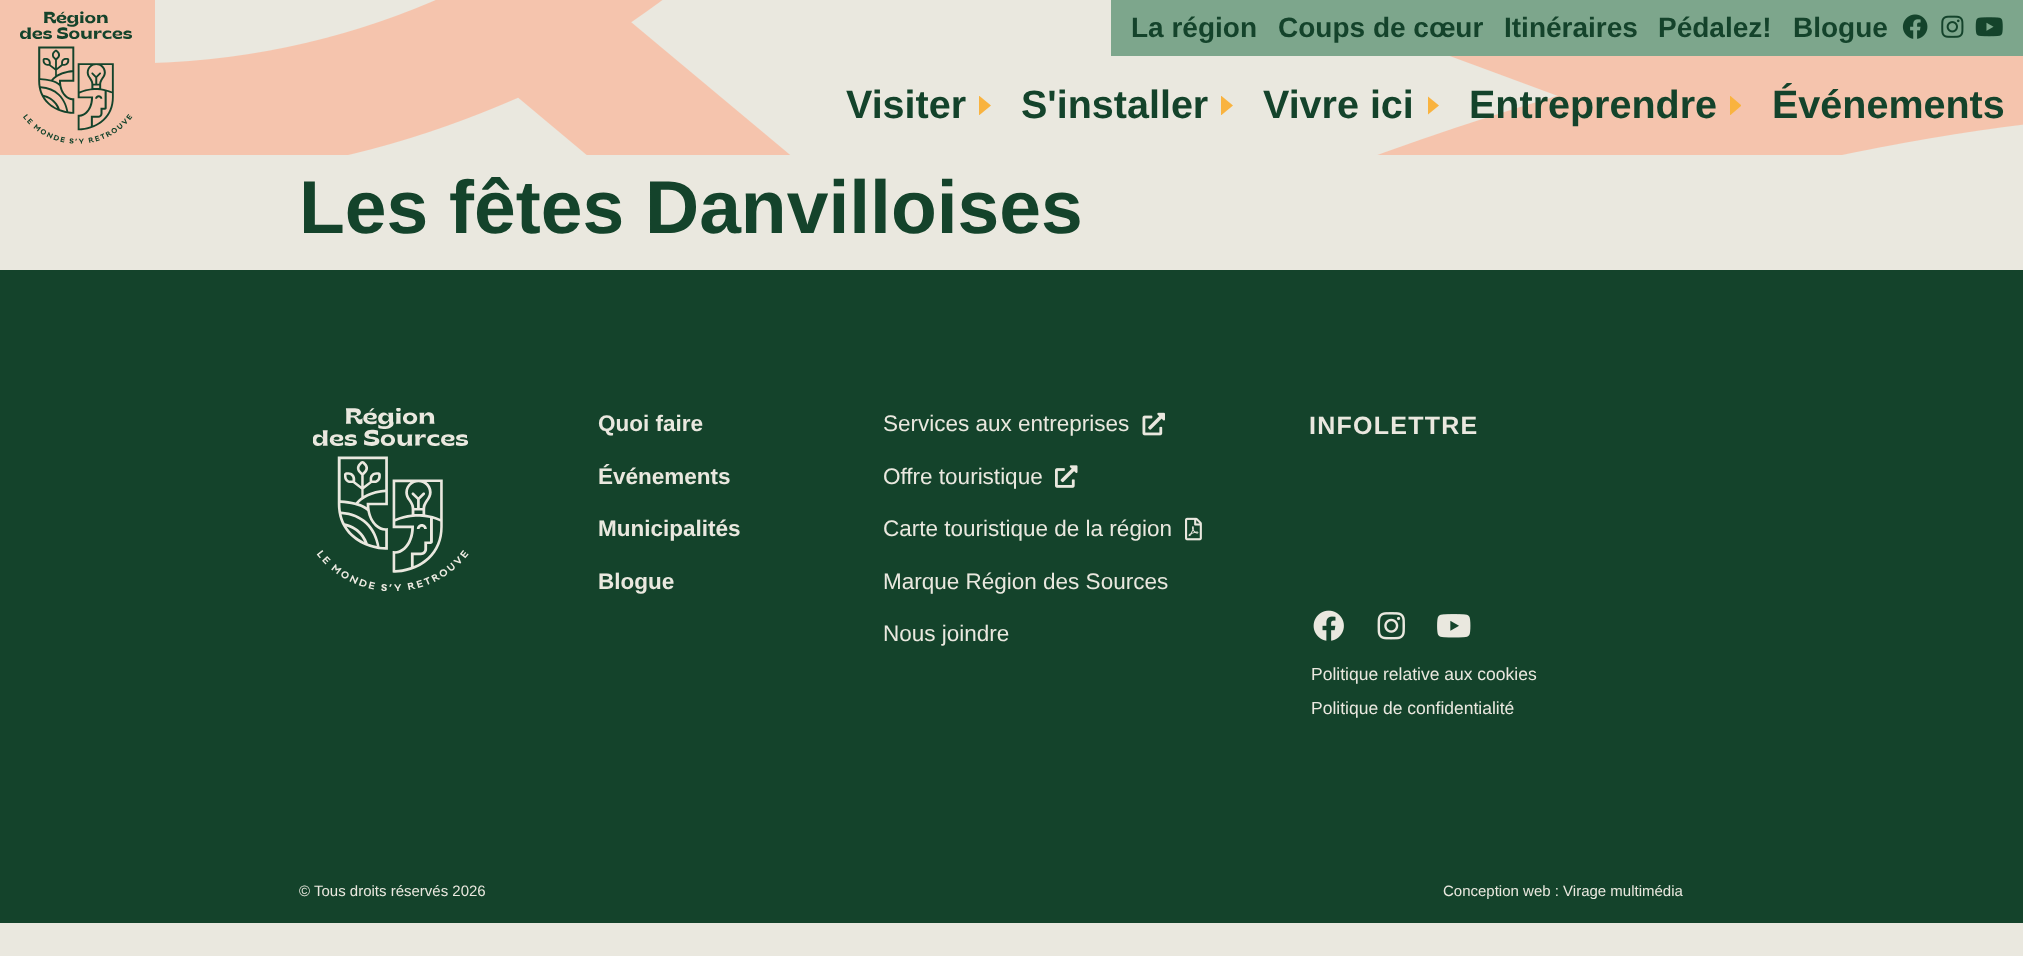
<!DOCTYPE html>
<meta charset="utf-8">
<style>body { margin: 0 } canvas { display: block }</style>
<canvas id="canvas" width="2023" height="956"></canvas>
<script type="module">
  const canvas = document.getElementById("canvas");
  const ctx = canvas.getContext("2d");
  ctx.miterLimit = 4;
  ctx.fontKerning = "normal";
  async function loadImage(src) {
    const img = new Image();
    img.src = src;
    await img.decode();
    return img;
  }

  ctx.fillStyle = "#eae8df";
  ctx.fillRect(0, 0, 2023, 956);
  ctx.drawImage(await loadImage("img1.png"), 155, 0, 1868, 155);
  ctx.fillStyle = "#f5c4ad";
  ctx.fillRect(0, 0, 155, 155);
  ctx.drawImage(await loadImage("img2.png"), 20, 11, 113, 133);
  ctx.fillStyle = "#7da68c";
  ctx.fillRect(1111, 0, 912, 56);
  ctx.font = "bold 28px Liberation Sans";
  ctx.fillStyle = "#14432b";
  ctx.fillText("La région", 1131, 37);
  ctx.fillText("Coups de cœur", 1278, 37);
  ctx.fillText("Itinéraires", 1504, 37);
  ctx.fillText("Pédalez!", 1658, 37);
  ctx.fillText("Blogue", 1793, 37);
  ctx.drawImage(await loadImage("img3.png"), 1902, 14, 26, 25);
  ctx.drawImage(await loadImage("img4.png"), 1941, 15, 23, 23);
  ctx.drawImage(await loadImage("img5.png"), 1975, 17, 28, 20);
  ctx.font = "bold 39.5px Liberation Sans";
  ctx.fillText("Visiter", 846, 118);
  ctx.fillStyle = "#f9b33f";
  ctx.beginPath();
  ctx.moveTo(979, 115);
  ctx.lineTo(979, 96);
  ctx.lineTo(979.5, 96);
  ctx.lineTo(991, 105.5);
  ctx.lineTo(979.5, 115);
  ctx.closePath();
  ctx.fill();
  ctx.fillStyle = "#14432b";
  ctx.fillText("S'installer", 1021, 118);
  ctx.fillStyle = "#f9b33f";
  ctx.beginPath();
  ctx.moveTo(1221, 115);
  ctx.lineTo(1221, 96);
  ctx.lineTo(1221.5, 96);
  ctx.lineTo(1233, 105.5);
  ctx.lineTo(1221.5, 115);
  ctx.closePath();
  ctx.fill();
  ctx.fillStyle = "#14432b";
  ctx.fillText("Vivre ici", 1263, 118);
  ctx.fillStyle = "#f9b33f";
  ctx.beginPath();
  ctx.moveTo(1428, 96.5);
  ctx.lineTo(1439, 105.5);
  ctx.lineTo(1428, 114.5);
  ctx.closePath();
  ctx.fill();
  ctx.fillStyle = "#14432b";
  ctx.fillText("Entreprendre", 1469, 118);
  ctx.fillStyle = "#f9b33f";
  ctx.beginPath();
  ctx.moveTo(1730, 96);
  ctx.lineTo(1730.5, 96);
  ctx.lineTo(1741, 105);
  ctx.lineTo(1741, 106);
  ctx.lineTo(1730.5, 115);
  ctx.lineTo(1730, 115);
  ctx.closePath();
  ctx.fill();
  ctx.fillStyle = "#14432b";
  ctx.fillText("Événements", 1772, 118);
  ctx.font = "bold 75px Liberation Sans";
  ctx.fillText("Les fêtes Danvilloises", 299, 233);
  ctx.fillRect(0, 270, 2023, 653);
  ctx.drawImage(await loadImage("img6.png"), 313, 408, 156, 183);
  ctx.font = "bold 22.5px Liberation Sans";
  ctx.fillStyle = "#eae8df";
  ctx.fillText("Quoi faire", 598, 431);
  ctx.fillText("Événements", 598, 484);
  ctx.fillText("Municipalités", 598, 536);
  ctx.fillText("Blogue", 598, 589);
  ctx.font = "22.5px Liberation Sans";
  ctx.fillText("Services aux entreprises", 883, 431);
  ctx.drawImage(await loadImage("img7.png"), 1142, 412, 23, 24);
  ctx.fillText("Offre touristique", 883, 484);
  ctx.drawImage(await loadImage("img8.png"), 1055, 465, 23, 23);
  ctx.fillText("Carte touristique de la région", 883, 536);
  ctx.drawImage(await loadImage("img9.png"), 1185, 517, 17, 24);
  ctx.fillText("Marque Région des Sources", 883, 589);
  ctx.fillText("Nous joindre", 883, 641);
  ctx.letterSpacing = "1.25px";
  ctx.font = "bold 25px Liberation Sans";
  ctx.fillText("INFOLETTRE", 1309, 434);
  ctx.drawImage(await loadImage("img10.png"), 1313, 610, 31, 31);
  ctx.drawImage(await loadImage("img11.png"), 1377, 612, 28, 28);
  ctx.drawImage(await loadImage("img12.png"), 1437, 614, 34, 24);
  ctx.letterSpacing = "0px";
  ctx.font = "17.5px Liberation Sans";
  ctx.fillText("Politique relative aux cookies", 1311, 680);
  ctx.fillText("Politique de confidentialité", 1311, 714);
  ctx.font = "15px Liberation Sans";
  ctx.fillText("© Tous droits réservés 2026", 299, 896);
  ctx.fillText("Conception web : Virage multimédia", 1443, 896);
</script>
